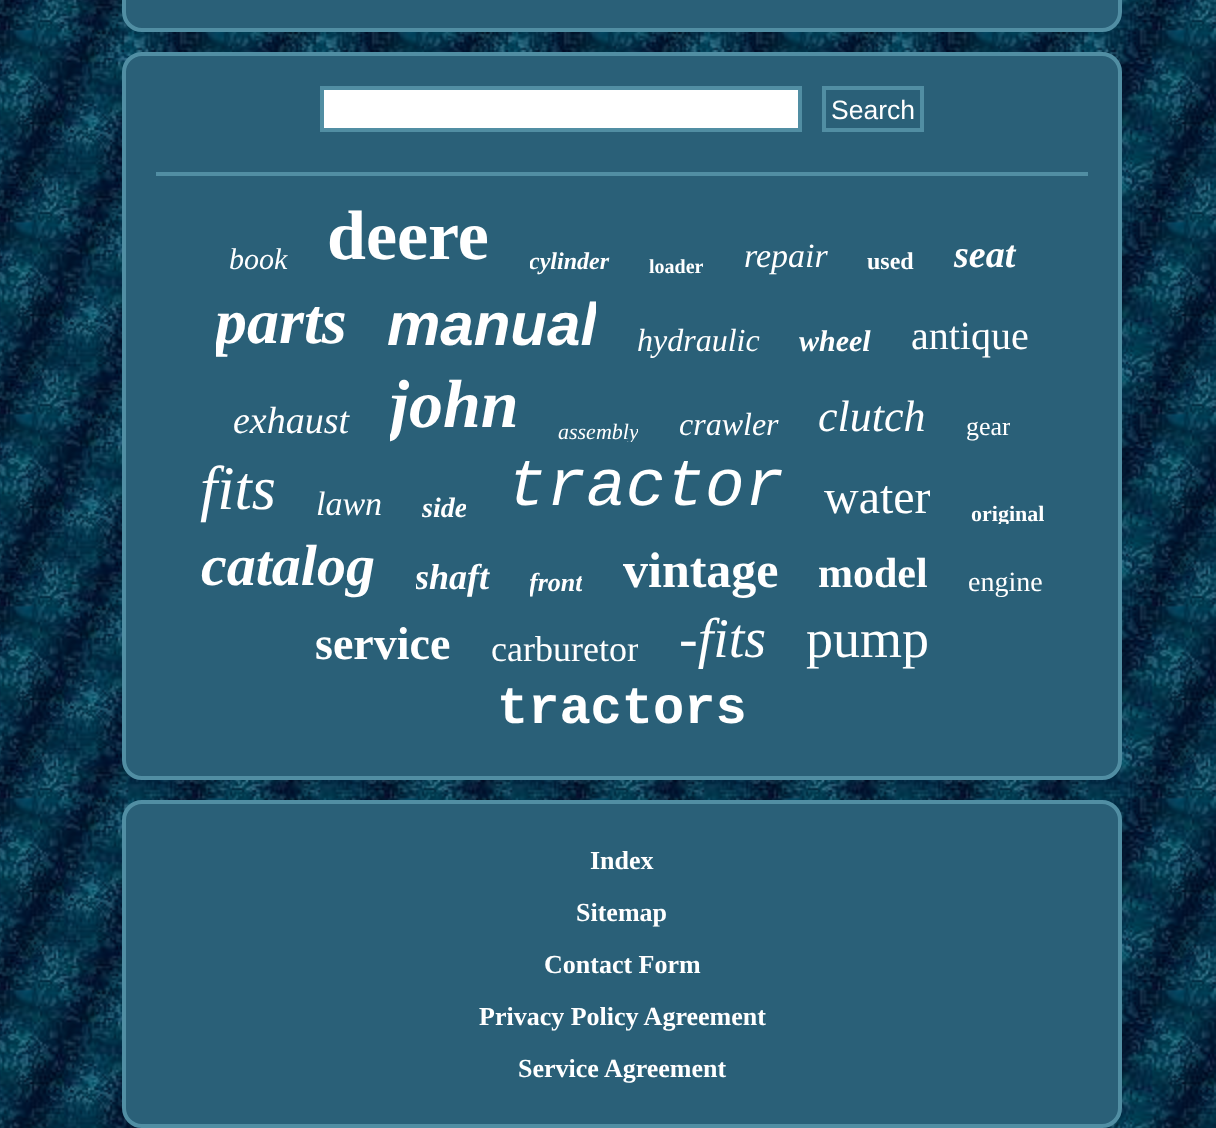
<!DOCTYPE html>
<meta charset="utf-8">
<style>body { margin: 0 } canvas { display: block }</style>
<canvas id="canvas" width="1216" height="1128"></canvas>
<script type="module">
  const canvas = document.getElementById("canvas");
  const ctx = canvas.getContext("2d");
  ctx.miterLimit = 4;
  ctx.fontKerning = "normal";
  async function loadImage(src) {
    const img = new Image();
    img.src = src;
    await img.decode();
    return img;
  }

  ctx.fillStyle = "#ffffff";
  ctx.fillRect(0, 0, 1216, 1128);
  ctx.drawImage(await loadImage("img1.png"), 0, 0, 1216, 1128);
  ctx.fillStyle = "#2a6078";
  ctx.beginPath();
  ctx.roundRect(124, -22, 996, 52, 18);
  ctx.fill();
  ctx.strokeStyle = "#518ea3";
  ctx.lineWidth = 4;
  ctx.stroke();
  ctx.beginPath();
  ctx.roundRect(124, 54, 996, 724, 18);
  ctx.fill();
  ctx.stroke();
  ctx.fillStyle = "#ffffff";
  ctx.beginPath();
  ctx.rect(322, 88, 478, 42);
  ctx.fill();
  ctx.stroke();
  ctx.beginPath();
  ctx.rect(824, 88, 98, 42);
  ctx.stroke();
  ctx.font = "26.5px Liberation Sans";
  ctx.fillText("Search", 831, 119);
  ctx.fillStyle = "#518ea3";
  ctx.fillRect(156, 172, 932, 4);
  ctx.font = "italic 30px Liberation Serif";
  ctx.fillStyle = "#ffffff";
  ctx.fillText("book", 229, 269);
  ctx.font = "bold 70px Liberation Serif";
  ctx.fillText("deere", 327, 259);
  ctx.save();
  ctx.beginPath();
  ctx.rect(530, 246, 80, 30);
  ctx.clip();
  ctx.font = "italic bold 24px Liberation Serif";
  ctx.fillText("cylinder", 529, 269);
  ctx.restore();
  ctx.font = "bold 20px Liberation Serif";
  ctx.fillText("loader", 649, 273);
  ctx.font = "italic 34px Liberation Serif";
  ctx.fillText("repair", 744, 267);
  ctx.font = "bold 24px Liberation Serif";
  ctx.fillText("used", 867, 269);
  ctx.font = "italic bold 38px Liberation Serif";
  ctx.fillText("seat", 954, 267);
  ctx.save();
  ctx.beginPath();
  ctx.rect(216, 284, 130, 74);
  ctx.clip();
  ctx.font = "italic bold 64px Liberation Serif";
  ctx.fillText("parts", 215, 343);
  ctx.restore();
  ctx.save();
  ctx.beginPath();
  ctx.rect(386, 290, 210, 68);
  ctx.clip();
  ctx.font = "italic bold 60px Liberation Sans";
  ctx.fillText("manual", 387, 345);
  ctx.restore();
  ctx.font = "italic 32px Liberation Serif";
  ctx.fillText("hydraulic", 637, 351);
  ctx.font = "italic bold 30px Liberation Serif";
  ctx.fillText("wheel", 799, 351);
  ctx.font = "40px Liberation Serif";
  ctx.fillText("antique", 911, 349);
  ctx.font = "italic 38px Liberation Serif";
  ctx.fillText("exhaust", 233, 433);
  ctx.save();
  ctx.beginPath();
  ctx.rect(390, 366, 128, 76);
  ctx.clip();
  ctx.font = "italic bold 68px Liberation Serif";
  ctx.fillText("john", 390, 427);
  ctx.restore();
  ctx.save();
  ctx.beginPath();
  ctx.rect(558, 418, 80, 24);
  ctx.clip();
  ctx.font = "italic 22px Liberation Serif";
  ctx.fillText("assembly", 558, 439);
  ctx.restore();
  ctx.font = "italic 32px Liberation Serif";
  ctx.fillText("crawler", 679, 435);
  ctx.font = "italic 44px Liberation Serif";
  ctx.fillText("clutch", 818, 431);
  ctx.save();
  ctx.beginPath();
  ctx.rect(966, 410, 44, 32);
  ctx.clip();
  ctx.font = "26px Liberation Serif";
  ctx.fillText("gear", 966, 435);
  ctx.restore();
  ctx.font = "italic 62px Liberation Serif";
  ctx.fillText("fits", 200, 509);
  ctx.font = "italic 34px Liberation Serif";
  ctx.fillText("lawn", 316, 515);
  ctx.save();
  ctx.beginPath();
  ctx.rect(422, 492, 44, 32);
  ctx.clip();
  ctx.font = "italic bold 28px Liberation Serif";
  ctx.fillText("side", 422, 517);
  ctx.restore();
  ctx.font = "italic 66px Liberation Mono";
  ctx.fillText("tractor", 507, 505);
  ctx.save();
  ctx.beginPath();
  ctx.rect(824, 470, 106, 54);
  ctx.clip();
  ctx.font = "48px Liberation Serif";
  ctx.fillText("water", 824, 513);
  ctx.restore();
  ctx.save();
  ctx.beginPath();
  ctx.rect(970, 500, 74, 24);
  ctx.clip();
  ctx.font = "bold 22px Liberation Serif";
  ctx.fillText("original", 971, 521);
  ctx.restore();
  ctx.font = "italic bold 58px Liberation Serif";
  ctx.fillText("catalog", 201, 585);
  ctx.save();
  ctx.beginPath();
  ctx.rect(416, 556, 74, 42);
  ctx.clip();
  ctx.font = "italic bold 36px Liberation Serif";
  ctx.fillText("shaft", 415, 589);
  ctx.restore();
  ctx.save();
  ctx.beginPath();
  ctx.rect(530, 566, 52, 32);
  ctx.clip();
  ctx.font = "italic bold 26px Liberation Serif";
  ctx.fillText("front", 529, 591);
  ctx.restore();
  ctx.font = "bold 50px Liberation Serif";
  ctx.fillText("vintage", 623, 587);
  ctx.font = "bold 42px Liberation Serif";
  ctx.fillText("model", 818, 587);
  ctx.font = "28px Liberation Serif";
  ctx.fillText("engine", 968, 591);
  ctx.font = "bold 46px Liberation Serif";
  ctx.fillText("service", 315, 659);
  ctx.save();
  ctx.beginPath();
  ctx.rect(490, 628, 148, 42);
  ctx.clip();
  ctx.font = "36px Liberation Serif";
  ctx.fillText("carburetor", 491, 661);
  ctx.restore();
  ctx.font = "italic 56px Liberation Serif";
  ctx.fillText("-fits", 679, 657);
  ctx.font = "54px Liberation Serif";
  ctx.fillText("pump", 806, 657);
  ctx.font = "bold 52px Liberation Mono";
  ctx.fillText("tractors", 497, 723);
  ctx.fillStyle = "#2a6078";
  ctx.beginPath();
  ctx.roundRect(124, 802, 996, 324, 18);
  ctx.fill();
  ctx.stroke();
  ctx.font = "bold 26px Liberation Serif";
  ctx.fillStyle = "#ffffff";
  ctx.fillText("Index", 590, 869);
  ctx.fillText("Sitemap", 576, 921);
  ctx.fillText("Contact Form", 544, 973);
  ctx.fillText("Privacy Policy Agreement", 479, 1025);
  ctx.fillText("Service Agreement", 518, 1077);
</script>
